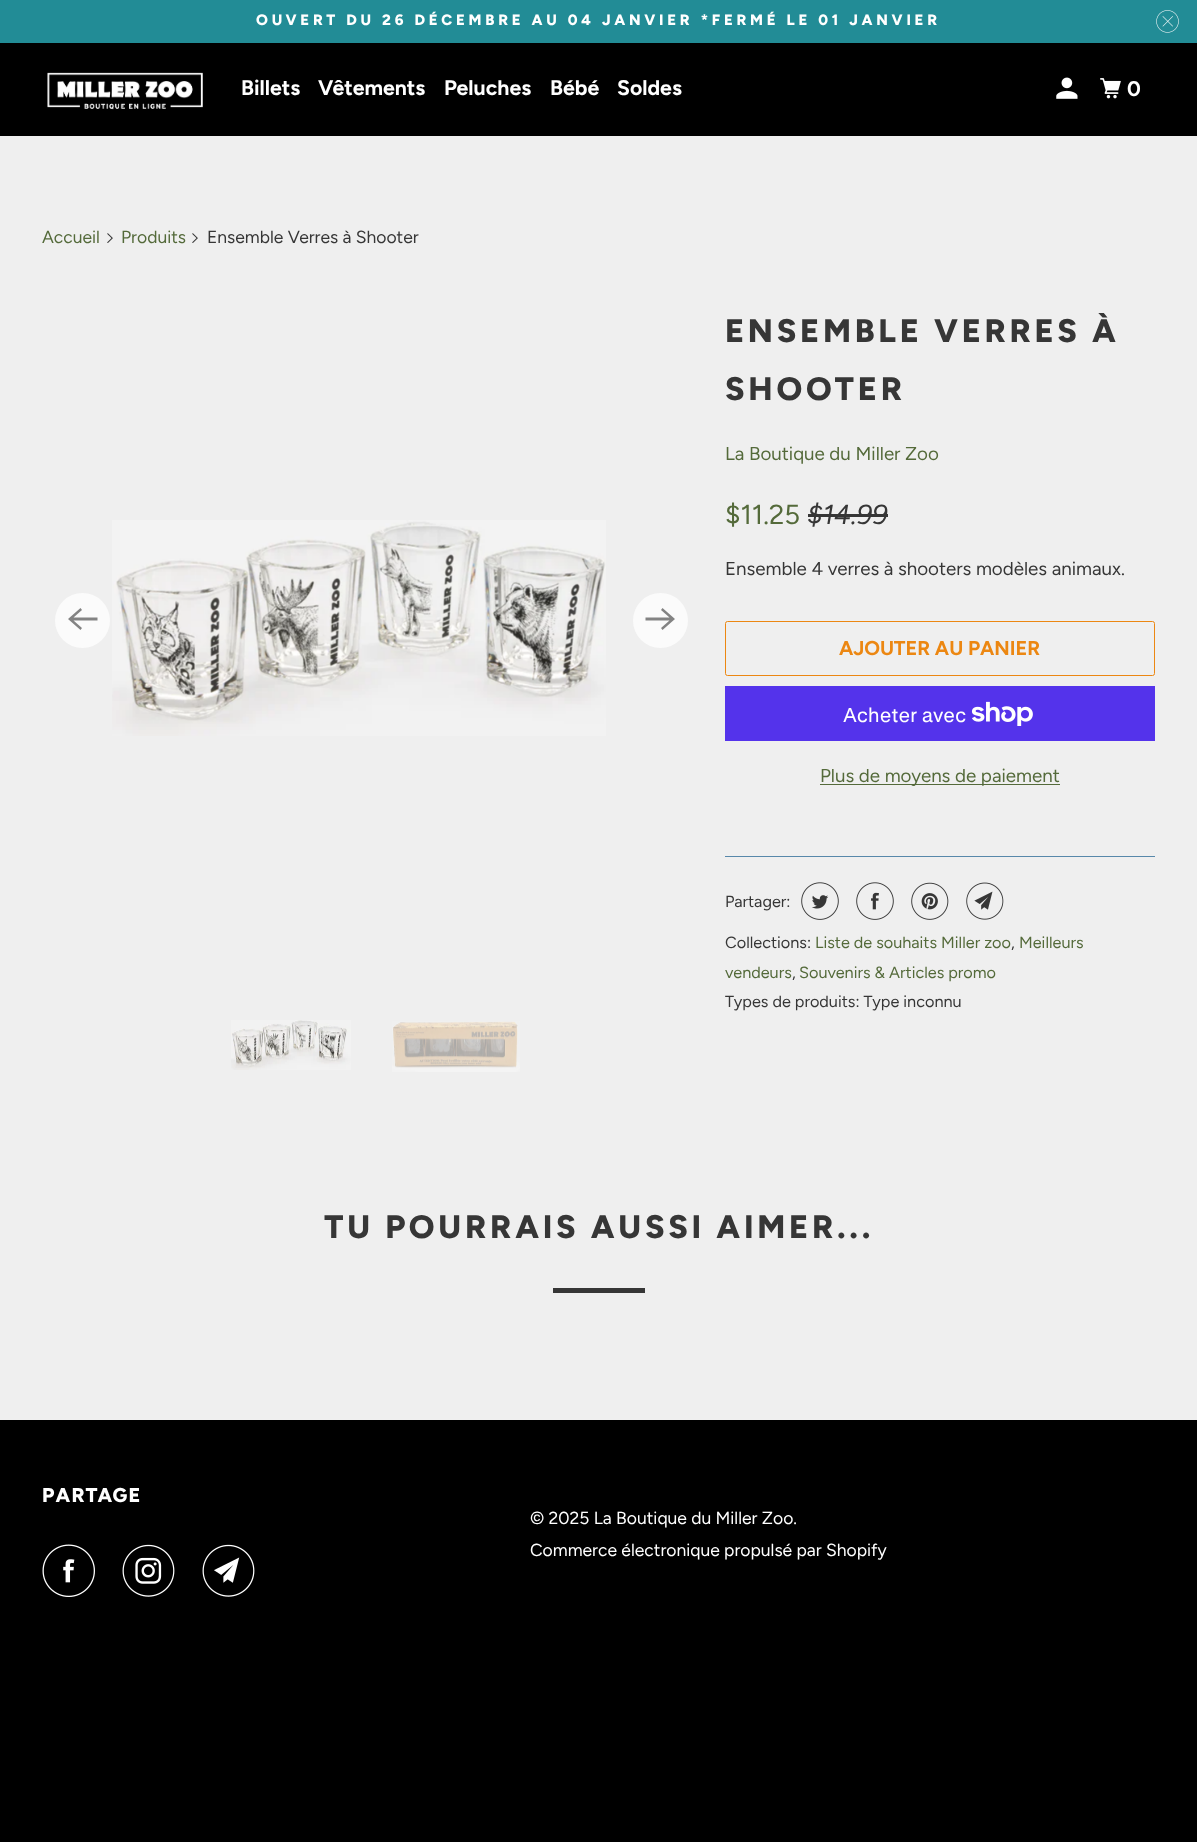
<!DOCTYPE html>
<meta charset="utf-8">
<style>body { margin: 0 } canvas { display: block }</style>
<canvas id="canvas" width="1197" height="1842"></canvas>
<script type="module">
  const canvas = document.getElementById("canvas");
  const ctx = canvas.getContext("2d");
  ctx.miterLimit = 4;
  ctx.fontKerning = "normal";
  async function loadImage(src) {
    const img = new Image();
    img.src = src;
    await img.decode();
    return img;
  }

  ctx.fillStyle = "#000000";
  ctx.fillRect(0, 0, 1197, 1842);
  ctx.fillStyle = "#efefef";
  ctx.fillRect(0, 136, 1197, 1284);
  ctx.fillStyle = "#228c96";
  ctx.fillRect(0, 0, 1197, 43);
  ctx.letterSpacing = "3.75px";
  ctx.font = "800 15px Figtree";
  ctx.fillStyle = "#ffffff";
  ctx.fillText("OUVERT DU 26 DÉCEMBRE AU 04 JANVIER *FERMÉ LE 01 JANVIER", 256, 25);
  ctx.drawImage(await loadImage("img1.png"), 1156, 10, 23, 23);
  ctx.drawImage(await loadImage("img2.png"), 47, 72, 156, 38);
  ctx.letterSpacing = "0px";
  ctx.font = "bold 21.25px Figtree";
  ctx.fillText("Billets", 241, 95);
  ctx.fillText("Vêtements", 318, 95);
  ctx.fillText("Peluches", 444, 95);
  ctx.fillText("Bébé", 550, 95);
  ctx.fillText("Soldes", 617, 95);
  ctx.drawImage(await loadImage("img3.png"), 1056, 77, 22, 22);
  ctx.drawImage(await loadImage("img4.png"), 1100, 78, 21, 21);
  ctx.fillText("0", 1127, 96);
  ctx.font = "17.5px Figtree";
  ctx.fillStyle = "#546a3a";
  ctx.fillText("Accueil", 42, 243);
  ctx.drawImage(await loadImage("img5.png"), 107, 233, 6, 10);
  ctx.fillText("Produits", 121, 243);
  ctx.drawImage(await loadImage("img5.png"), 192, 233, 6, 10);
  ctx.fillStyle = "#363636";
  ctx.fillText("Ensemble Verres à Shooter", 207, 243);
  ctx.fillStyle = "#fbfbfb";
  ctx.beginPath();
  ctx.arc(82.5, 620.5, 27.5, 0, Math.PI * 2);
  ctx.fill();
  ctx.fillStyle = "#838383";
  ctx.beginPath();
  ctx.moveTo(97.5, 617.5);
  ctx.lineTo(73.5, 617.5);
  ctx.lineTo(82, 610);
  ctx.lineTo(80.5, 608);
  ctx.lineTo(68, 619);
  ctx.lineTo(80.5, 630);
  ctx.lineTo(82, 628);
  ctx.lineTo(73.5, 620.5);
  ctx.lineTo(97.5, 620.5);
  ctx.closePath();
  ctx.fill();
  ctx.drawImage(await loadImage("img6.png"), 112, 520, 494, 216);
  ctx.fillStyle = "#fbfbfb";
  ctx.beginPath();
  ctx.arc(660.5, 620.5, 27.5, 0, Math.PI * 2);
  ctx.fill();
  ctx.fillStyle = "#838383";
  ctx.beginPath();
  ctx.moveTo(645.5, 620.5);
  ctx.lineTo(669.5, 620.5);
  ctx.lineTo(661, 628);
  ctx.lineTo(662.5, 630);
  ctx.lineTo(675, 619);
  ctx.lineTo(662.5, 608);
  ctx.lineTo(661, 610);
  ctx.lineTo(669.5, 617.5);
  ctx.lineTo(645.5, 617.5);
  ctx.closePath();
  ctx.fill();
  ctx.drawImage(await loadImage("img7.png"), 231, 1020, 120, 50);
  ctx.drawImage(await loadImage("img8.png"), 392, 1021, 128, 51);
  ctx.letterSpacing = "3.75px";
  ctx.font = "800 32.5px Figtree";
  ctx.fillStyle = "#363636";
  ctx.fillText("ENSEMBLE VERRES À", 725, 342);
  ctx.fillText("SHOOTER", 725, 400);
  ctx.letterSpacing = "0px";
  ctx.font = "18.75px Figtree";
  ctx.fillStyle = "#546a3a";
  ctx.fillText("La Boutique du Miller Zoo", 725, 460);
  ctx.font = "27.5px Figtree";
  ctx.fillText("$11.25", 725, 524);
  ctx.font = "italic 27.5px Figtree";
  ctx.fillStyle = "#363636";
  ctx.fillText("$14.99", 807, 524);
  ctx.fillRect(808, 514, 80, 3);
  ctx.font = "18.75px Figtree";
  ctx.fillText("Ensemble 4 verres à shooters modèles animaux.", 725, 575);
  ctx.beginPath();
  ctx.roundRect(725.5, 621.5, 429, 54, 2);
  ctx.strokeStyle = "#ec8712";
  ctx.stroke();
  ctx.font = "bold 20px Figtree";
  ctx.fillStyle = "#ec8712";
  ctx.fillText("AJOUTER AU PANIER", 839, 655);
  ctx.fillStyle = "#5433eb";
  ctx.fillRect(725, 686, 430, 55);
  ctx.font = "20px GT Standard";
  ctx.fillStyle = "#ffffff";
  ctx.fillText("Acheter avec", 843, 722);
  ctx.drawImage(await loadImage("img9.png"), 971, 701, 62, 25);
  ctx.fillStyle = "#546a3a";
  ctx.fillRect(820, 784, 240, 1);
  ctx.font = "18.75px Figtree";
  ctx.fillText("Plus de moyens de paiement", 820, 782);
  ctx.fillStyle = "#5888aa";
  ctx.fillRect(725, 856, 430, 1);
  ctx.font = "16.25px Figtree";
  ctx.fillStyle = "#363636";
  ctx.fillText("Partager:", 725, 907);
  ctx.drawImage(await loadImage("img10.png"), 801, 882, 38, 38);
  ctx.drawImage(await loadImage("img11.png"), 856, 882, 38, 38);
  ctx.drawImage(await loadImage("img12.png"), 911, 882, 38, 38);
  ctx.drawImage(await loadImage("img13.png"), 966, 882, 38, 38);
  ctx.fillText("Collections:", 725, 948);
  ctx.fillStyle = "#546a3a";
  ctx.fillText("Liste de souhaits Miller zoo", 815, 948);
  ctx.fillStyle = "#363636";
  ctx.fillText(",", 1011, 948);
  ctx.fillStyle = "#546a3a";
  ctx.fillText("Meilleurs", 1019, 948);
  ctx.fillText("vendeurs", 725, 978);
  ctx.fillStyle = "#363636";
  ctx.fillText(",", 792, 978);
  ctx.fillStyle = "#546a3a";
  ctx.fillText("Souvenirs & Articles promo", 799, 978);
  ctx.fillStyle = "#363636";
  ctx.fillText("Types de produits: Type inconnu", 725, 1007);
  ctx.letterSpacing = "3.75px";
  ctx.font = "800 32.5px Figtree";
  ctx.fillText("TU POURRAIS AUSSI AIMER...", 324, 1238);
  ctx.fillRect(553, 1288, 92, 5);
  ctx.letterSpacing = "1.25px";
  ctx.font = "800 20px Figtree";
  ctx.fillStyle = "#ffffff";
  ctx.fillText("PARTAGE", 42, 1502);
  ctx.drawImage(await loadImage("img14.png"), 42, 1544, 53, 53);
  ctx.drawImage(await loadImage("img15.png"), 122, 1544, 53, 53);
  ctx.drawImage(await loadImage("img16.png"), 202, 1544, 53, 53);
  ctx.letterSpacing = "0px";
  ctx.font = "17.5px Figtree";
  ctx.fillText("© 2025 La Boutique du Miller Zoo.", 530, 1524);
  ctx.fillText("Commerce électronique propulsé par Shopify", 530, 1556);
</script>
